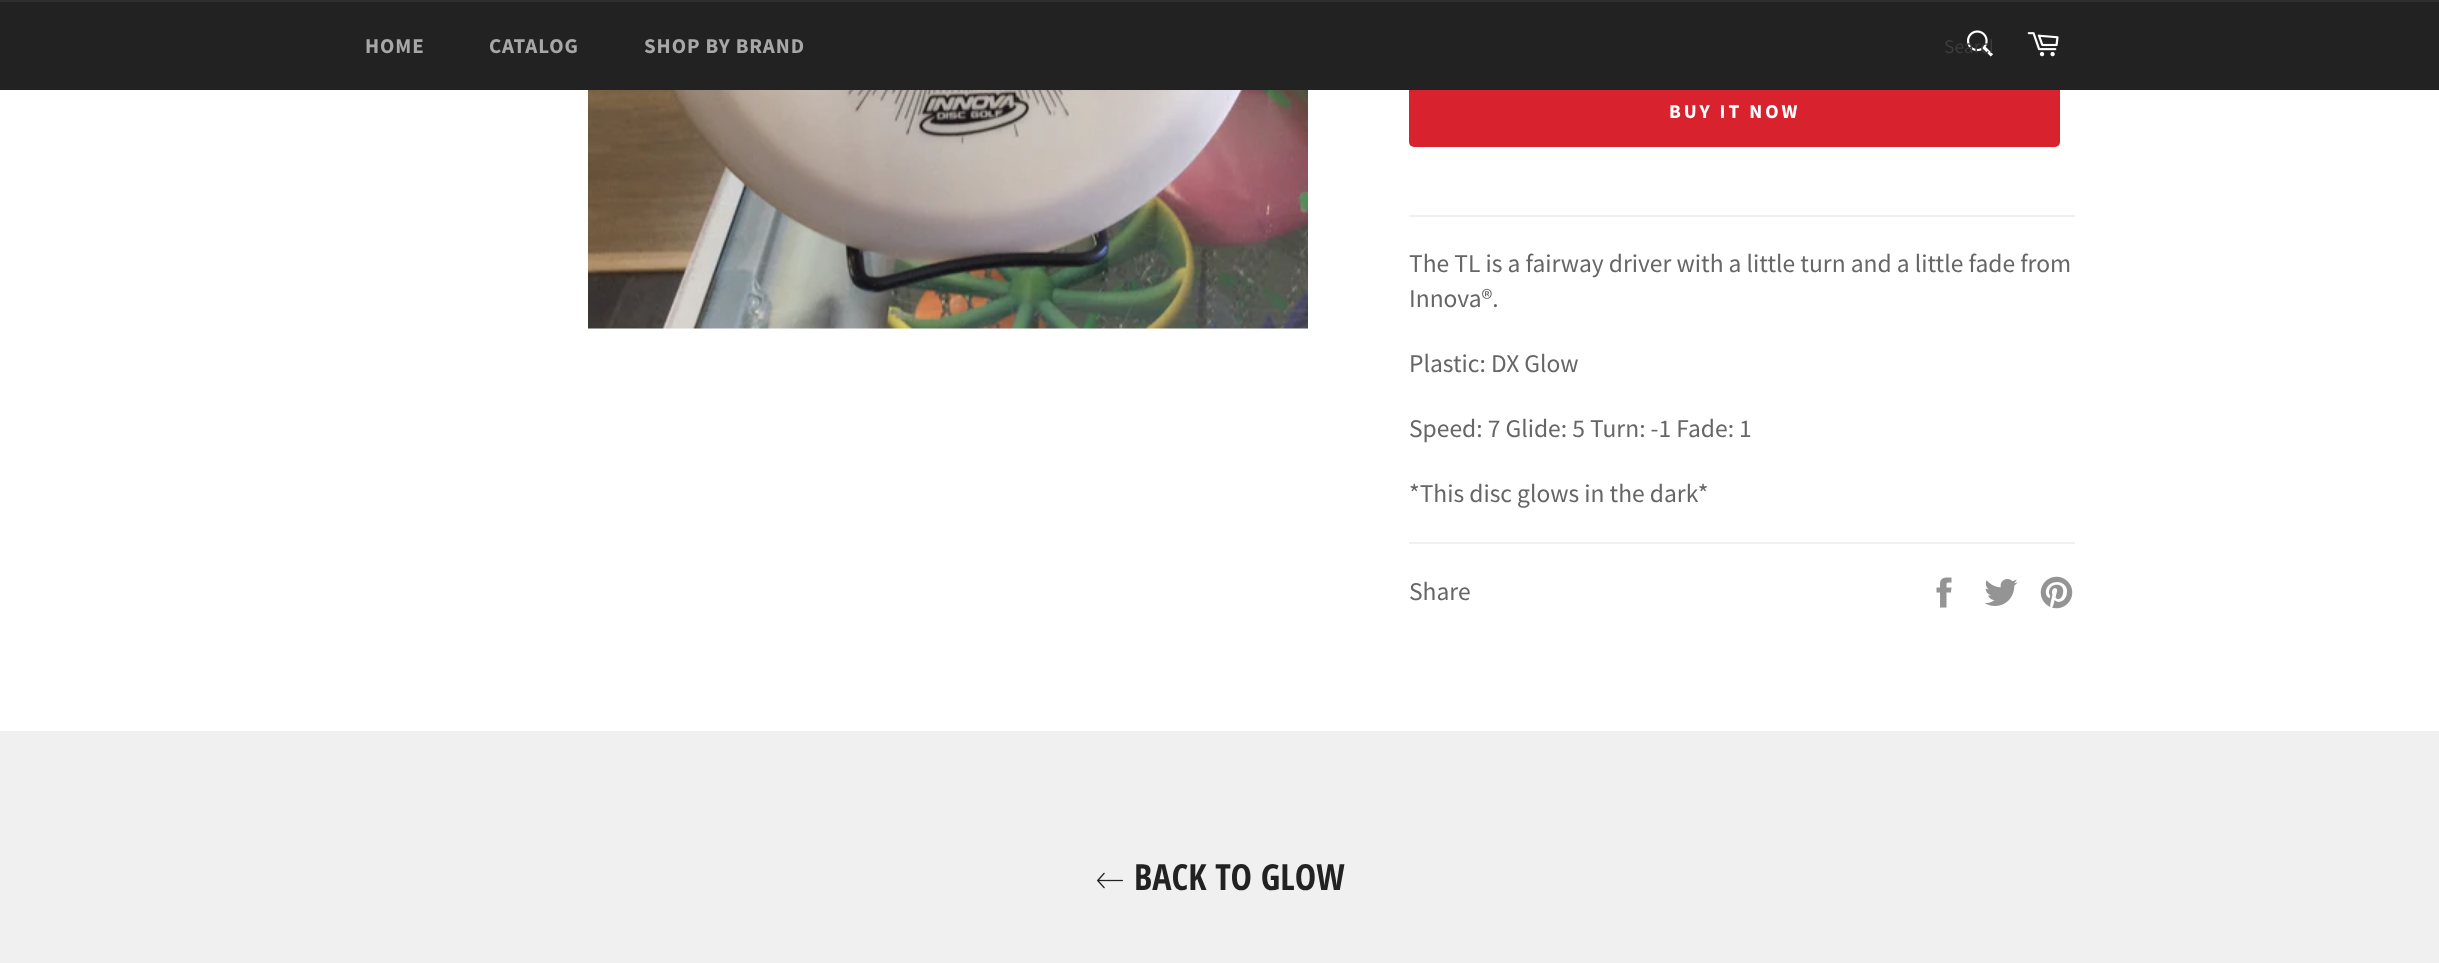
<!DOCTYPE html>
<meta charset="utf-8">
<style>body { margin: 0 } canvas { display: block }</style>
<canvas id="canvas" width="2439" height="963"></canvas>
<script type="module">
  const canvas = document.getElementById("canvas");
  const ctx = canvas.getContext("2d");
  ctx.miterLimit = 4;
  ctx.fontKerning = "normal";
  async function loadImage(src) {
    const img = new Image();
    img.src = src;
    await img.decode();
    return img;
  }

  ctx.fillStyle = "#ffffff";
  ctx.fillRect(0, 0, 2439, 963);
  ctx.fillStyle = "#d8232f";
  ctx.beginPath();
  ctx.roundRect(1409, 75, 651, 72, 5);
  ctx.fill();
  ctx.fillStyle = "#222222";
  ctx.fillRect(0, 2, 2439, 88);
  ctx.fillStyle = "#2f2f2f";
  ctx.fillRect(0, 0, 2439, 2);
  ctx.letterSpacing = "0.9px";
  ctx.font = "bold 21px Source Sans Pro";
  ctx.fillStyle = "#a7a7a7";
  ctx.fillText("HOME", 365, 53);
  ctx.fillText("CATALOG", 489, 53);
  ctx.fillText("SHOP BY BRAND", 644, 53);
  ctx.drawImage(await loadImage("img1.png"), 1966, 30, 27, 27);
  ctx.save();
  ctx.beginPath();
  ctx.rect(1944, 33, 48, 26);
  ctx.clip();
  ctx.letterSpacing = "0px";
  ctx.font = "19.5px Source Sans Pro";
  ctx.fillStyle = "#3c3c3c";
  ctx.fillText("Search", 1944, 53);
  ctx.restore();
  ctx.drawImage(await loadImage("img2.png"), 2027, 32, 32, 25);
  ctx.drawImage(await loadImage("img3.png"), 588, 90, 720, 239);
  ctx.letterSpacing = "3px";
  ctx.font = "bold 19.5px Source Sans Pro";
  ctx.fillStyle = "#ffffff";
  ctx.fillText("BUY IT NOW", 1669, 118);
  ctx.fillStyle = "#f0f0f0";
  ctx.fillRect(1409, 215, 666, 2);
  ctx.letterSpacing = "0px";
  ctx.font = "25.5px Source Sans Pro";
  ctx.fillStyle = "#666666";
  ctx.fillText("The TL is a fairway driver with a little turn and a little fade from", 1409, 272);
  ctx.fillText("Innova®.", 1409, 307);
  ctx.fillText("Plastic: DX Glow", 1409, 372);
  ctx.fillText("Speed: 7 Glide: 5 Turn: -1 Fade: 1", 1409, 437);
  ctx.fillText("*This disc glows in the dark*", 1409, 502);
  ctx.fillStyle = "#f0f0f0";
  ctx.fillRect(1409, 542, 666, 2);
  ctx.fillStyle = "#666666";
  ctx.fillText("Share", 1409, 600);
  ctx.drawImage(await loadImage("img4.png"), 1936, 577, 16, 31);
  ctx.drawImage(await loadImage("img5.png"), 1984, 579, 34, 27);
  ctx.drawImage(await loadImage("img6.png"), 2040, 576, 33, 33);
  ctx.fillStyle = "#f0f0f0";
  ctx.fillRect(0, 731, 2439, 232);
  ctx.drawImage(await loadImage("img7.png"), 1097, 872, 26, 17);
  ctx.font = "bold 36px Open Sans Condensed";
  ctx.fillStyle = "#222222";
  ctx.fillText("BACK TO GLOW", 1134, 890);
</script>
